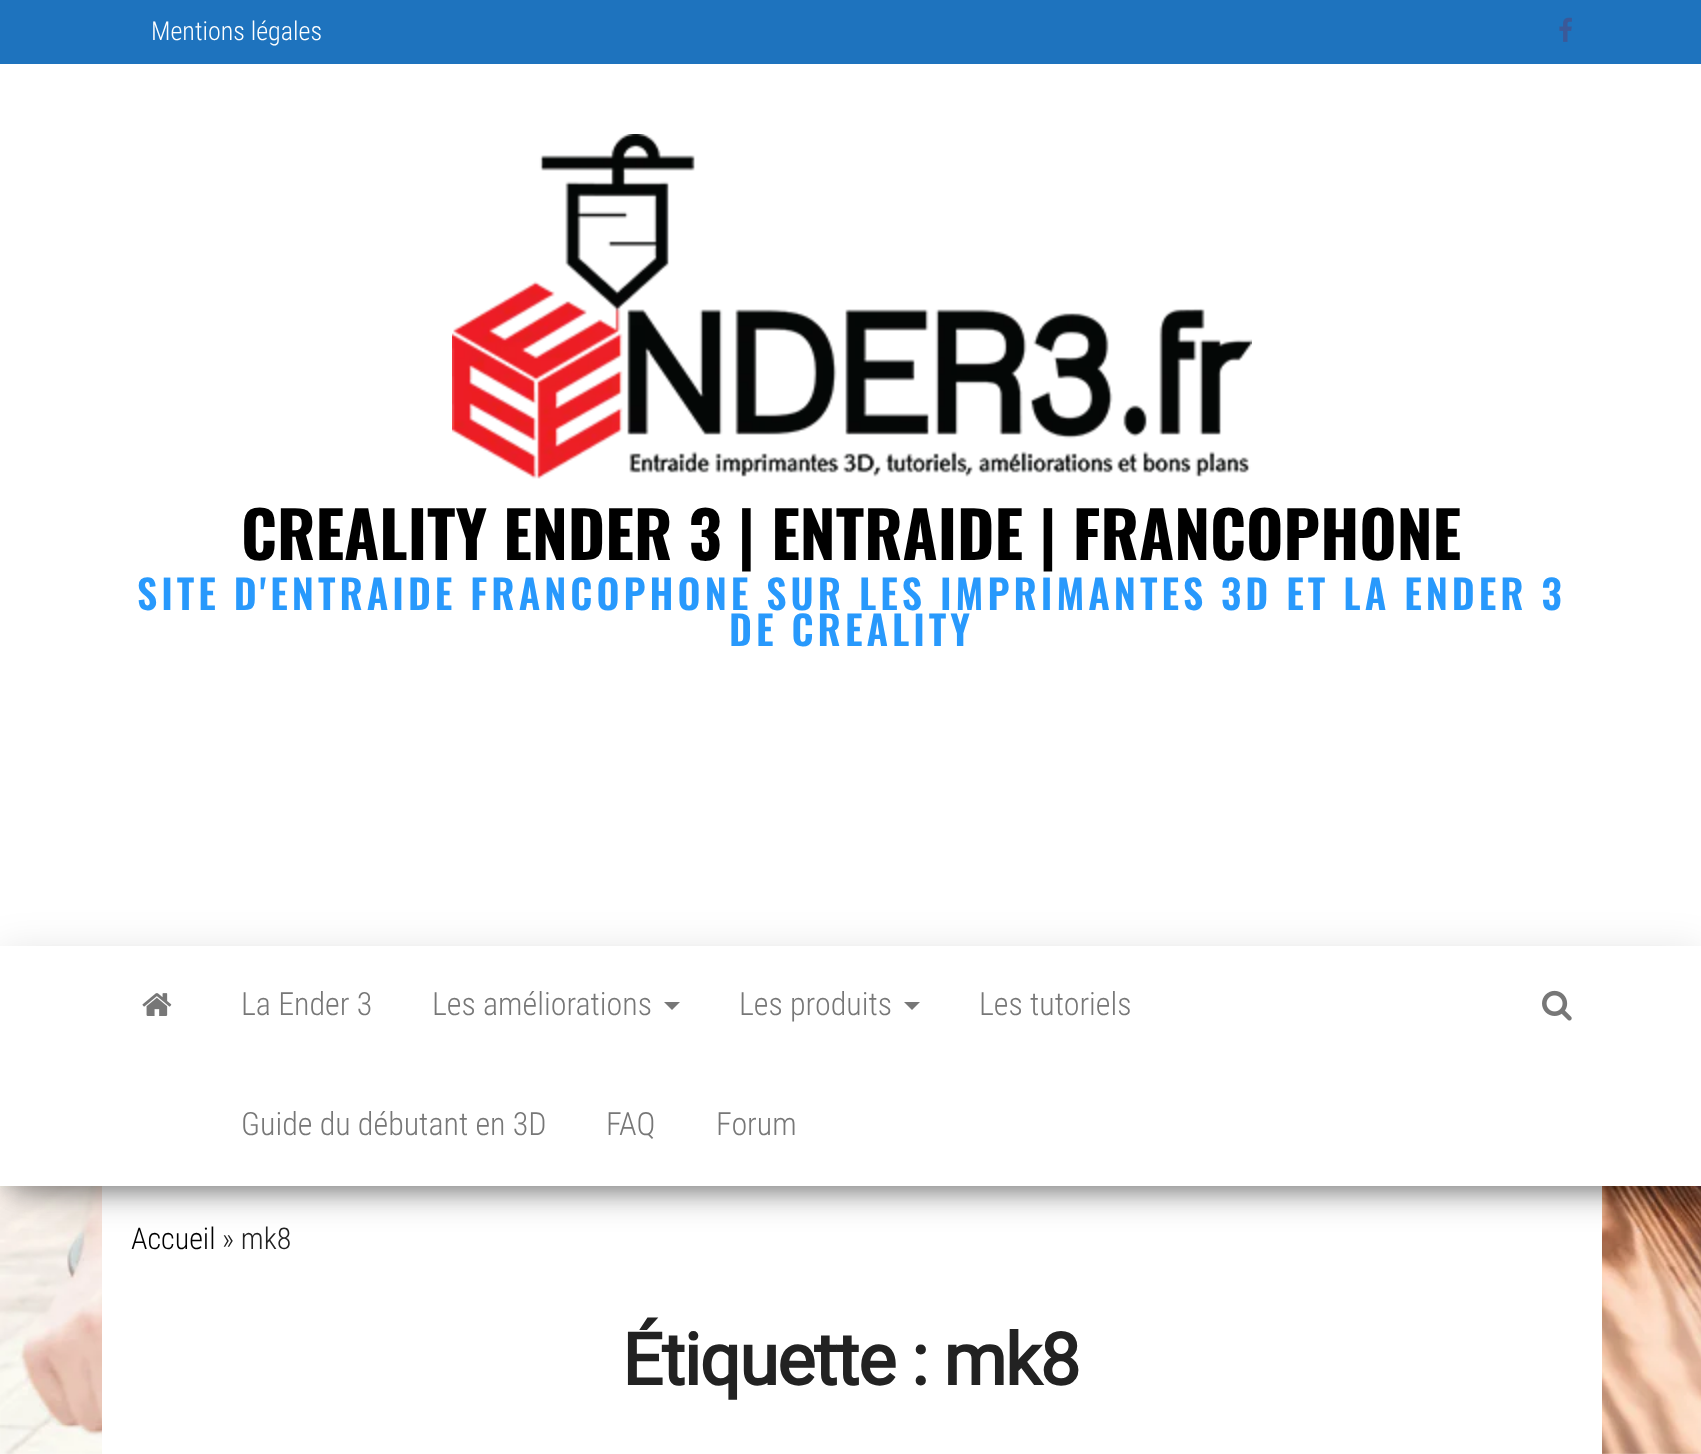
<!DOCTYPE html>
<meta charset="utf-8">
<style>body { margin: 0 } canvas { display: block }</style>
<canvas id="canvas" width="1701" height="1454"></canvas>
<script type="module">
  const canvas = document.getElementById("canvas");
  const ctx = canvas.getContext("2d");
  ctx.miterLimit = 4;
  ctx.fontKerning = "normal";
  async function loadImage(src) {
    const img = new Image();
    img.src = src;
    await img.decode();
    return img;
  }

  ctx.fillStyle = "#ffffff";
  ctx.fillRect(0, 0, 1701, 1454);
  ctx.drawImage(await loadImage("img1.png"), 0, 1186, 1701, 268);
  ctx.fillStyle = "#1e73be";
  ctx.fillRect(0, 0, 1701, 64);
  ctx.font = "300 26px Roboto Condensed";
  ctx.fillStyle = "#ffffff";
  ctx.fillText("Mentions légales", 151, 40);
  ctx.drawImage(await loadImage("img2.png"), 1559, 17, 13, 25);
  ctx.drawImage(await loadImage("img3.png"), 452, 134, 800, 345);
  ctx.font = "bold 64px Oswald";
  ctx.fillStyle = "#000000";
  ctx.fillText("CREALITY ENDER 3 | ENTRAIDE | FRANCOPHONE", 241, 560);
  ctx.letterSpacing = "4px";
  ctx.font = "600 40px Oswald";
  ctx.fillStyle = "#2899fc";
  ctx.fillText("SITE D'ENTRAIDE FRANCOPHONE SUR LES IMPRIMANTES 3D ET LA ENDER 3", 137, 610);
  ctx.fillText("DE CREALITY", 729, 646);
  ctx.fillStyle = "#ffffff";
  ctx.fillRect(102, 1186, 1500, 268);
  ctx.fillStyle = "rgba(0, 0, 0, 0.2)";
  ctx.filter = "blur(10px)";
  ctx.beginPath();
  ctx.rect(10, 972, 1682, 220);
  ctx.fill();
  ctx.filter = "none";
  ctx.fillStyle = "rgba(0, 0, 0, 0.12)";
  ctx.filter = "blur(20px)";
  ctx.beginPath();
  ctx.rect(0, 952, 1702, 240);
  ctx.fill();
  ctx.filter = "none";
  ctx.fillStyle = "rgba(0, 0, 0, 0.42)";
  ctx.filter = "blur(20px)";
  ctx.beginPath();
  ctx.rect(24, 990, 1654, 192);
  ctx.fill();
  ctx.filter = "none";
  ctx.fillStyle = "#ffffff";
  ctx.fillRect(0, 946, 1701, 240);
  ctx.drawImage(await loadImage("img4.png"), 142, 993, 30, 23);
  ctx.letterSpacing = "0px";
  ctx.font = "300 32px Roboto Condensed";
  ctx.fillStyle = "#777777";
  ctx.fillText("La Ender 3", 241, 1015);
  ctx.fillText("Les améliorations", 432, 1015);
  ctx.beginPath();
  ctx.moveTo(664, 1002);
  ctx.lineTo(680, 1002);
  ctx.lineTo(672, 1010);
  ctx.closePath();
  ctx.fill();
  ctx.fillText("Les produits", 739, 1015);
  ctx.beginPath();
  ctx.moveTo(904, 1002);
  ctx.lineTo(920, 1002);
  ctx.lineTo(912, 1010);
  ctx.closePath();
  ctx.fill();
  ctx.fillText("Les tutoriels", 979, 1015);
  ctx.fillText("Guide du débutant en 3D", 241, 1135);
  ctx.fillText("FAQ", 606, 1135);
  ctx.fillText("Forum", 716, 1135);
  ctx.drawImage(await loadImage("img5.png"), 1542, 990, 30, 31);
  ctx.font = "300 30px Roboto Condensed";
  ctx.fillStyle = "#000000";
  ctx.fillText("Accueil", 131, 1249);
  ctx.fillStyle = "#222222";
  ctx.fillText("» mk8", 222, 1249);
  ctx.letterSpacing = "-1.5px";
  ctx.font = "bold 72px Roboto";
  ctx.fillText("Étiquette : mk8", 622, 1385);
</script>
